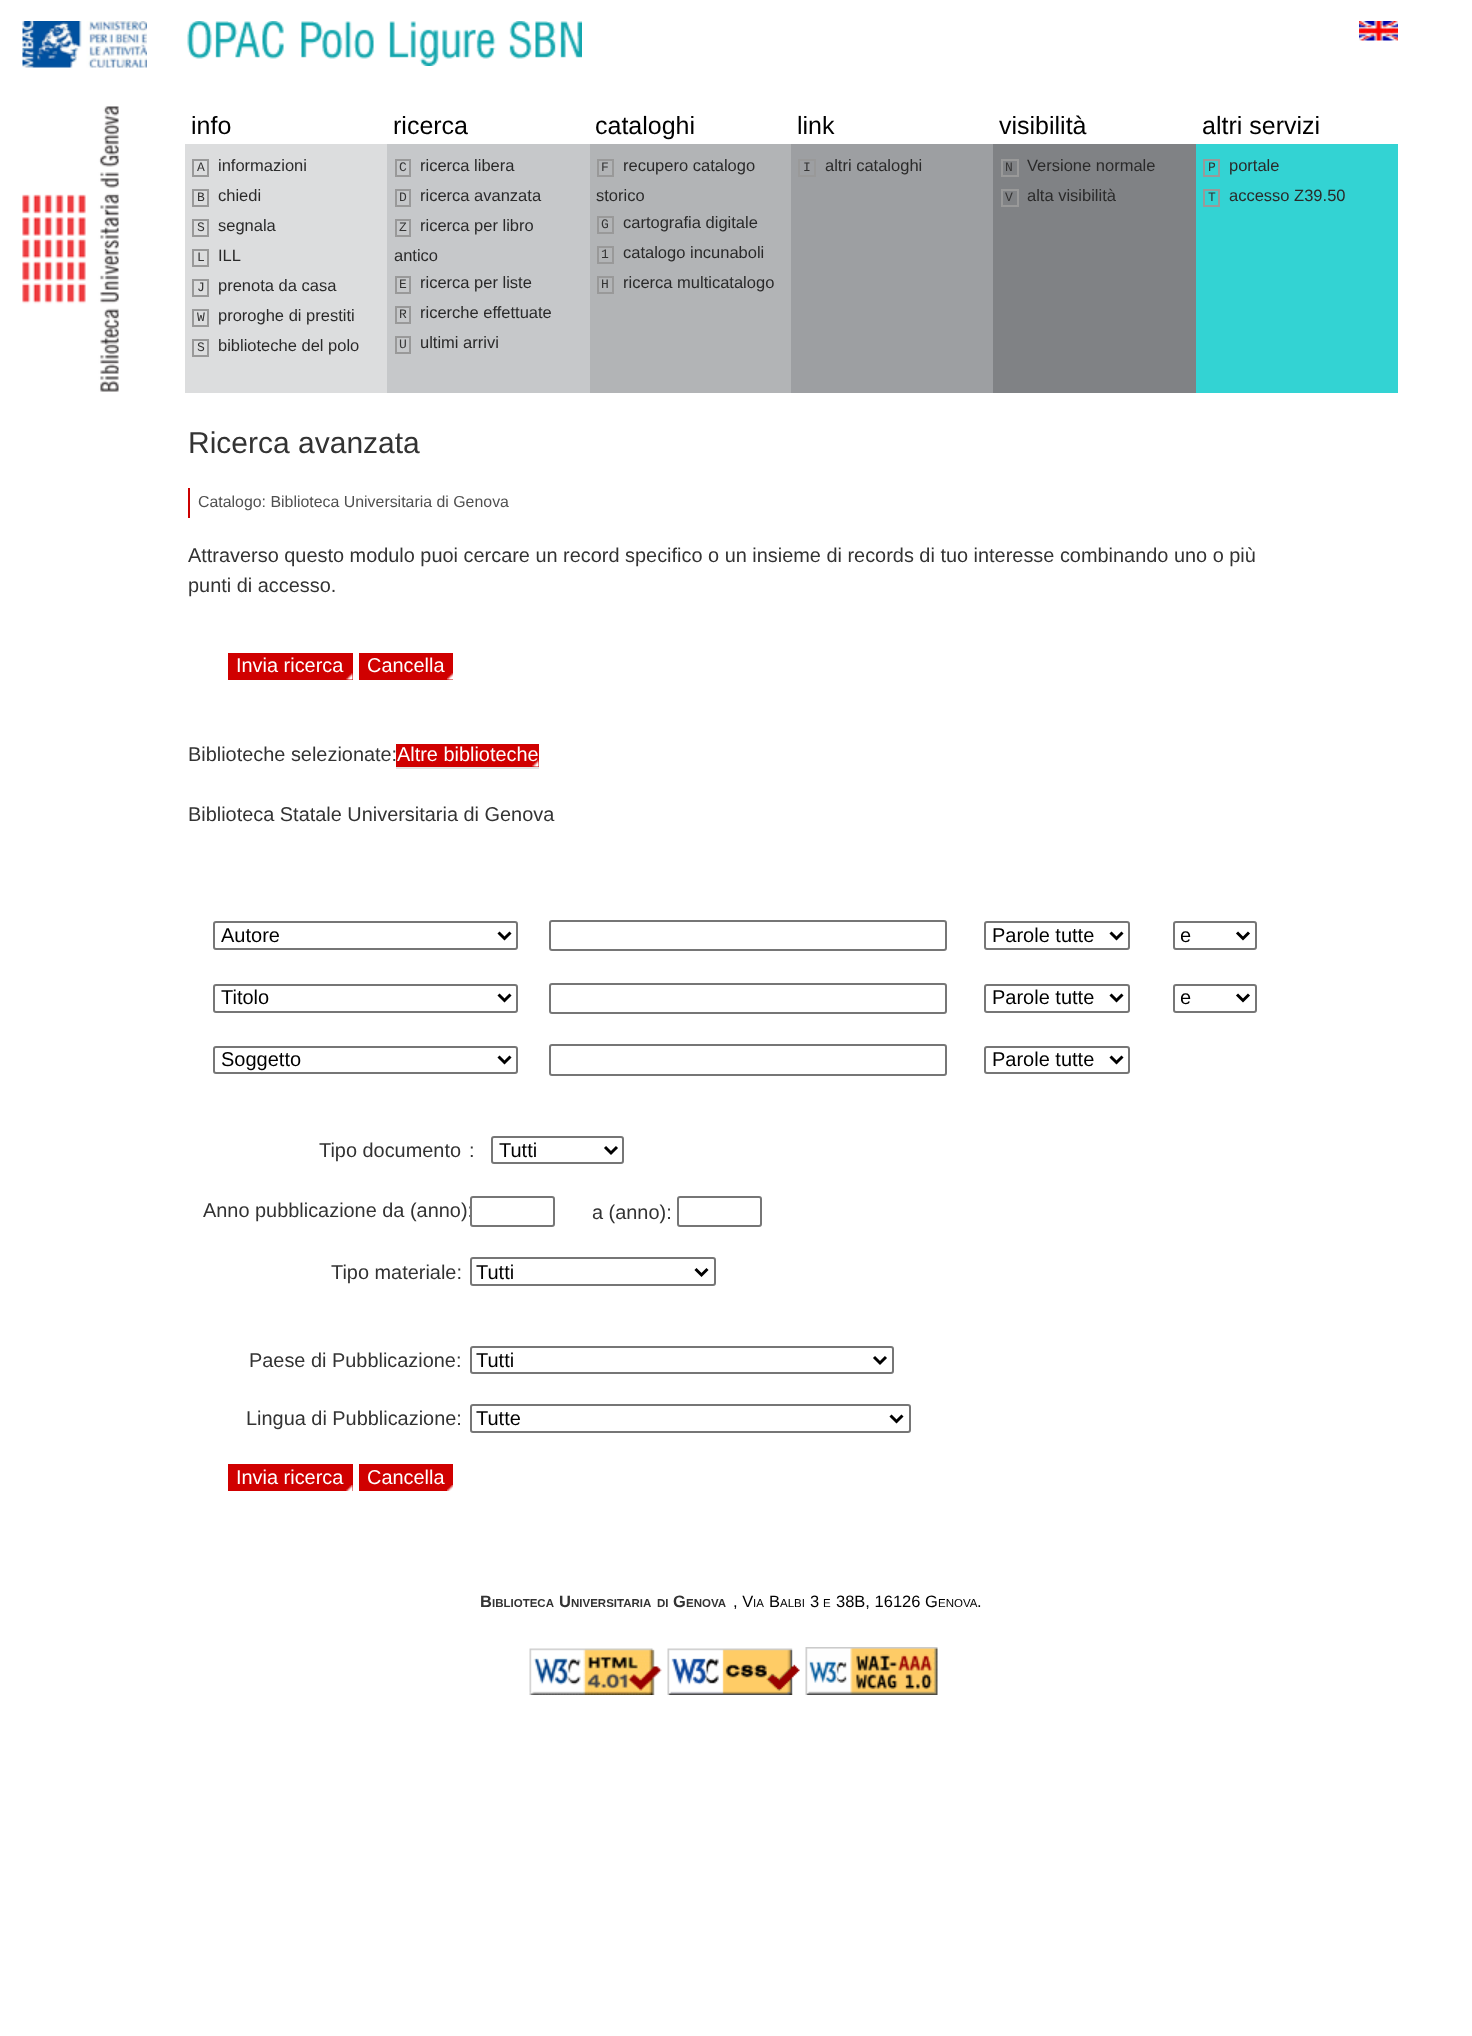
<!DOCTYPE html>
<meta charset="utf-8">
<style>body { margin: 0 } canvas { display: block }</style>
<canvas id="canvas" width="1472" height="2036"></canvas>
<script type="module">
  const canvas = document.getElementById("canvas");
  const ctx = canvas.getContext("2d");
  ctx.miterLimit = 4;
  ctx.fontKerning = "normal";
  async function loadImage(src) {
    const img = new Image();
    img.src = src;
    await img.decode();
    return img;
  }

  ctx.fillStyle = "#ffffff";
  ctx.fillRect(0, 0, 1472, 2036);
  ctx.drawImage(await loadImage("img1.png"), 22, 21, 125, 47);
  ctx.drawImage(await loadImage("img2.png"), 187, 21, 395, 45);
  ctx.drawImage(await loadImage("img3.png"), 22, 106, 97, 286);
  ctx.drawImage(await loadImage("img4.png"), 1359, 21, 39, 20);
  ctx.font = "25px Liberation Sans";
  ctx.fillStyle = "#000000";
  ctx.fillText("info", 191, 134);
  ctx.fillText("ricerca", 393, 134);
  ctx.fillText("cataloghi", 595, 134);
  ctx.fillText("link", 797, 134);
  ctx.fillText("visibilità", 999, 134);
  ctx.fillText("altri servizi", 1202, 134);
  ctx.fillStyle = "#dcddde";
  ctx.fillRect(185, 144, 202, 249);
  ctx.strokeStyle = "#999999";
  ctx.lineWidth = 2;
  ctx.strokeRect(193, 160, 15, 16);
  ctx.font = "13px Liberation Mono";
  ctx.fillStyle = "#333333";
  ctx.fillText("A", 197, 171);
  ctx.font = "16.5px Liberation Sans";
  ctx.fillStyle = "#2a2a2a";
  ctx.fillText("informazioni", 218, 171);
  ctx.strokeRect(193, 190, 15, 16);
  ctx.font = "13px Liberation Mono";
  ctx.fillStyle = "#333333";
  ctx.fillText("B", 197, 201);
  ctx.font = "16.5px Liberation Sans";
  ctx.fillStyle = "#2a2a2a";
  ctx.fillText("chiedi", 218, 201);
  ctx.strokeRect(193, 220, 15, 16);
  ctx.font = "13px Liberation Mono";
  ctx.fillStyle = "#333333";
  ctx.fillText("S", 197, 231);
  ctx.font = "16.5px Liberation Sans";
  ctx.fillStyle = "#2a2a2a";
  ctx.fillText("segnala", 218, 231);
  ctx.strokeRect(193, 250, 15, 16);
  ctx.font = "13px Liberation Mono";
  ctx.fillStyle = "#333333";
  ctx.fillText("L", 197, 261);
  ctx.font = "16.5px Liberation Sans";
  ctx.fillStyle = "#2a2a2a";
  ctx.fillText("ILL", 218, 261);
  ctx.strokeRect(193, 280, 15, 16);
  ctx.font = "13px Liberation Mono";
  ctx.fillStyle = "#333333";
  ctx.fillText("J", 197, 291);
  ctx.font = "16.5px Liberation Sans";
  ctx.fillStyle = "#2a2a2a";
  ctx.fillText("prenota da casa", 218, 291);
  ctx.strokeRect(193, 310, 15, 16);
  ctx.font = "13px Liberation Mono";
  ctx.fillStyle = "#333333";
  ctx.fillText("W", 197, 321);
  ctx.font = "16.5px Liberation Sans";
  ctx.fillStyle = "#2a2a2a";
  ctx.fillText("proroghe di prestiti", 218, 321);
  ctx.strokeRect(193, 340, 15, 16);
  ctx.font = "13px Liberation Mono";
  ctx.fillStyle = "#333333";
  ctx.fillText("S", 197, 351);
  ctx.font = "16.5px Liberation Sans";
  ctx.fillStyle = "#2a2a2a";
  ctx.fillText("biblioteche del polo", 218, 351);
  ctx.fillStyle = "#c6c8ca";
  ctx.fillRect(387, 144, 203, 249);
  ctx.strokeRect(396, 160, 14, 16);
  ctx.font = "13px Liberation Mono";
  ctx.fillStyle = "#333333";
  ctx.fillText("C", 399, 171);
  ctx.font = "16.5px Liberation Sans";
  ctx.fillStyle = "#2a2a2a";
  ctx.fillText("ricerca libera", 420, 171);
  ctx.strokeRect(396, 190, 14, 16);
  ctx.font = "13px Liberation Mono";
  ctx.fillStyle = "#333333";
  ctx.fillText("D", 399, 201);
  ctx.font = "16.5px Liberation Sans";
  ctx.fillStyle = "#2a2a2a";
  ctx.fillText("ricerca avanzata", 420, 201);
  ctx.strokeRect(396, 220, 14, 16);
  ctx.font = "13px Liberation Mono";
  ctx.fillStyle = "#333333";
  ctx.fillText("Z", 399, 231);
  ctx.font = "16.5px Liberation Sans";
  ctx.fillStyle = "#2a2a2a";
  ctx.fillText("ricerca per libro", 420, 231);
  ctx.fillText("antico", 394, 261);
  ctx.strokeRect(396, 277, 14, 16);
  ctx.font = "13px Liberation Mono";
  ctx.fillStyle = "#333333";
  ctx.fillText("E", 399, 288);
  ctx.font = "16.5px Liberation Sans";
  ctx.fillStyle = "#2a2a2a";
  ctx.fillText("ricerca per liste", 420, 288);
  ctx.strokeRect(396, 307, 14, 16);
  ctx.font = "13px Liberation Mono";
  ctx.fillStyle = "#333333";
  ctx.fillText("R", 399, 318);
  ctx.font = "16.5px Liberation Sans";
  ctx.fillStyle = "#2a2a2a";
  ctx.fillText("ricerche effettuate", 420, 318);
  ctx.strokeRect(396, 337, 14, 16);
  ctx.font = "13px Liberation Mono";
  ctx.fillStyle = "#333333";
  ctx.fillText("U", 399, 348);
  ctx.font = "16.5px Liberation Sans";
  ctx.fillStyle = "#2a2a2a";
  ctx.fillText("ultimi arrivi", 420, 348);
  ctx.fillStyle = "#b2b4b6";
  ctx.fillRect(590, 144, 201, 249);
  ctx.strokeRect(598, 160, 15, 16);
  ctx.font = "13px Liberation Mono";
  ctx.fillStyle = "#333333";
  ctx.fillText("F", 601, 171);
  ctx.font = "16.5px Liberation Sans";
  ctx.fillStyle = "#2a2a2a";
  ctx.fillText("recupero catalogo", 623, 171);
  ctx.fillText("storico", 596, 201);
  ctx.strokeRect(598, 217, 15, 16);
  ctx.font = "13px Liberation Mono";
  ctx.fillStyle = "#333333";
  ctx.fillText("G", 601, 228);
  ctx.font = "16.5px Liberation Sans";
  ctx.fillStyle = "#2a2a2a";
  ctx.fillText("cartografia digitale", 623, 228);
  ctx.strokeRect(598, 247, 15, 16);
  ctx.font = "13px Liberation Mono";
  ctx.fillStyle = "#333333";
  ctx.fillText("1", 601, 258);
  ctx.font = "16.5px Liberation Sans";
  ctx.fillStyle = "#2a2a2a";
  ctx.fillText("catalogo incunaboli", 623, 258);
  ctx.strokeRect(598, 277, 15, 16);
  ctx.font = "13px Liberation Mono";
  ctx.fillStyle = "#333333";
  ctx.fillText("H", 601, 288);
  ctx.font = "16.5px Liberation Sans";
  ctx.fillStyle = "#2a2a2a";
  ctx.fillText("ricerca multicatalogo", 623, 288);
  ctx.fillStyle = "#9d9fa2";
  ctx.fillRect(791, 144, 202, 249);
  ctx.strokeRect(799, 160, 16, 16);
  ctx.font = "13px Liberation Mono";
  ctx.fillStyle = "#333333";
  ctx.fillText("I", 803, 171);
  ctx.font = "16.5px Liberation Sans";
  ctx.fillStyle = "#2a2a2a";
  ctx.fillText("altri cataloghi", 825, 171);
  ctx.fillStyle = "#808285";
  ctx.fillRect(993, 144, 203, 249);
  ctx.strokeRect(1002, 160, 16, 16);
  ctx.font = "13px Liberation Mono";
  ctx.fillStyle = "#333333";
  ctx.fillText("N", 1005, 171);
  ctx.font = "16.5px Liberation Sans";
  ctx.fillStyle = "#2a2a2a";
  ctx.fillText("Versione normale", 1027, 171);
  ctx.strokeRect(1002, 190, 16, 16);
  ctx.font = "13px Liberation Mono";
  ctx.fillStyle = "#333333";
  ctx.fillText("V", 1005, 201);
  ctx.font = "16.5px Liberation Sans";
  ctx.fillStyle = "#2a2a2a";
  ctx.fillText("alta visibilità", 1027, 201);
  ctx.fillStyle = "#33d3d3";
  ctx.fillRect(1196, 144, 202, 249);
  ctx.strokeRect(1204, 160, 15, 16);
  ctx.font = "13px Liberation Mono";
  ctx.fillStyle = "#333333";
  ctx.fillText("P", 1208, 171);
  ctx.font = "16.5px Liberation Sans";
  ctx.fillStyle = "#2a2a2a";
  ctx.fillText("portale", 1229, 171);
  ctx.strokeRect(1204, 190, 15, 16);
  ctx.font = "13px Liberation Mono";
  ctx.fillStyle = "#333333";
  ctx.fillText("T", 1208, 201);
  ctx.font = "16.5px Liberation Sans";
  ctx.fillStyle = "#2a2a2a";
  ctx.fillText("accesso Z39.50", 1229, 201);
  ctx.font = "30px Liberation Sans";
  ctx.fillStyle = "#333333";
  ctx.fillText("Ricerca avanzata", 188, 453);
  ctx.fillStyle = "#cc0000";
  ctx.fillRect(188, 488, 2, 30);
  ctx.font = "15.9px Liberation Sans";
  ctx.fillStyle = "#505050";
  ctx.fillText("Catalogo: Biblioteca Universitaria di Genova", 198, 507);
  ctx.font = "19.92px Liberation Sans";
  ctx.fillStyle = "#333333";
  ctx.fillText("Attraverso questo modulo puoi cercare un record specifico o un insieme di records di tuo interesse combinando uno o più", 188, 562);
  ctx.fillText("punti di accesso.", 188, 592);
  ctx.fillStyle = "#d00000";
  ctx.fillRect(228, 653, 125, 27);
  ctx.drawImage(await loadImage("img5.png"), 346, 673, 7, 7);
  ctx.fillStyle = "#ffffff";
  ctx.fillText("Invia ricerca", 236, 672);
  ctx.fillStyle = "#d00000";
  ctx.fillRect(359, 653, 94, 27);
  ctx.drawImage(await loadImage("img6.png"), 447, 673, 6, 7);
  ctx.fillStyle = "#ffffff";
  ctx.fillText("Cancella", 367, 672);
  ctx.fillStyle = "#333333";
  ctx.fillText("Biblioteche selezionate:", 188, 761);
  ctx.fillStyle = "#d00000";
  ctx.fillRect(396, 744, 143, 23);
  ctx.drawImage(await loadImage("img7.png"), 532, 760, 7, 7);
  ctx.fillStyle = "#ffffff";
  ctx.fillText("Altre biblioteche", 397, 761);
  ctx.fillStyle = "#e3e3e3";
  ctx.fillRect(396, 767, 143, 2);
  ctx.fillStyle = "#333333";
  ctx.fillText("Biblioteca Statale Universitaria di Genova", 188, 821);
  ctx.beginPath();
  ctx.roundRect(214, 922, 303, 27, 2);
  ctx.strokeStyle = "#767676";
  ctx.stroke();
  ctx.beginPath();
  ctx.moveTo(498.5, 932.5);
  ctx.lineTo(504.5, 938.5);
  ctx.lineTo(510.5, 932.5);
  ctx.strokeStyle = "#000000";
  ctx.lineWidth = 3;
  ctx.stroke();
  ctx.font = "20px Liberation Sans";
  ctx.fillStyle = "#000000";
  ctx.fillText("Autore", 221, 942);
  ctx.beginPath();
  ctx.roundRect(550, 921, 396, 29, 2);
  ctx.strokeStyle = "#767676";
  ctx.lineWidth = 2;
  ctx.stroke();
  ctx.beginPath();
  ctx.roundRect(985, 922, 144, 27, 2);
  ctx.stroke();
  ctx.beginPath();
  ctx.moveTo(1110.5, 932.5);
  ctx.lineTo(1116.5, 938.5);
  ctx.lineTo(1122.5, 932.5);
  ctx.strokeStyle = "#000000";
  ctx.lineWidth = 3;
  ctx.stroke();
  ctx.fillText("Parole tutte", 992, 942);
  ctx.beginPath();
  ctx.roundRect(1174, 922, 82, 27, 2);
  ctx.strokeStyle = "#767676";
  ctx.lineWidth = 2;
  ctx.stroke();
  ctx.beginPath();
  ctx.moveTo(1237, 932.5);
  ctx.lineTo(1243, 938.5);
  ctx.lineTo(1249, 932.5);
  ctx.strokeStyle = "#000000";
  ctx.lineWidth = 3;
  ctx.stroke();
  ctx.save();
  ctx.beginPath();
  ctx.rect(1181, 923, 51, 25);
  ctx.clip();
  ctx.fillText("e", 1180, 942);
  ctx.restore();
  ctx.beginPath();
  ctx.roundRect(214, 985, 303, 27, 2);
  ctx.strokeStyle = "#767676";
  ctx.lineWidth = 2;
  ctx.stroke();
  ctx.beginPath();
  ctx.moveTo(498.5, 994.5);
  ctx.lineTo(504.5, 1000.5);
  ctx.lineTo(510.5, 994.5);
  ctx.strokeStyle = "#000000";
  ctx.lineWidth = 3;
  ctx.stroke();
  ctx.fillText("Titolo", 221, 1004);
  ctx.beginPath();
  ctx.roundRect(550, 984, 396, 29, 2);
  ctx.strokeStyle = "#767676";
  ctx.lineWidth = 2;
  ctx.stroke();
  ctx.beginPath();
  ctx.roundRect(985, 985, 144, 27, 2);
  ctx.stroke();
  ctx.beginPath();
  ctx.moveTo(1110.5, 994.5);
  ctx.lineTo(1116.5, 1000.5);
  ctx.lineTo(1122.5, 994.5);
  ctx.strokeStyle = "#000000";
  ctx.lineWidth = 3;
  ctx.stroke();
  ctx.fillText("Parole tutte", 992, 1004);
  ctx.beginPath();
  ctx.roundRect(1174, 985, 82, 27, 2);
  ctx.strokeStyle = "#767676";
  ctx.lineWidth = 2;
  ctx.stroke();
  ctx.beginPath();
  ctx.moveTo(1237, 994.5);
  ctx.lineTo(1243, 1000.5);
  ctx.lineTo(1249, 994.5);
  ctx.strokeStyle = "#000000";
  ctx.lineWidth = 3;
  ctx.stroke();
  ctx.save();
  ctx.beginPath();
  ctx.rect(1181, 986, 51, 25);
  ctx.clip();
  ctx.fillText("e", 1180, 1004);
  ctx.restore();
  ctx.beginPath();
  ctx.roundRect(214, 1047, 303, 26, 2);
  ctx.strokeStyle = "#767676";
  ctx.lineWidth = 2;
  ctx.stroke();
  ctx.beginPath();
  ctx.moveTo(498.5, 1056.5);
  ctx.lineTo(504.5, 1062.5);
  ctx.lineTo(510.5, 1056.5);
  ctx.strokeStyle = "#000000";
  ctx.lineWidth = 3;
  ctx.stroke();
  ctx.fillText("Soggetto", 221, 1066);
  ctx.beginPath();
  ctx.roundRect(550, 1045, 396, 30, 2);
  ctx.strokeStyle = "#767676";
  ctx.lineWidth = 2;
  ctx.stroke();
  ctx.beginPath();
  ctx.roundRect(985, 1047, 144, 26, 2);
  ctx.stroke();
  ctx.beginPath();
  ctx.moveTo(1110.5, 1056.5);
  ctx.lineTo(1116.5, 1062.5);
  ctx.lineTo(1122.5, 1056.5);
  ctx.strokeStyle = "#000000";
  ctx.lineWidth = 3;
  ctx.stroke();
  ctx.fillText("Parole tutte", 992, 1066);
  ctx.font = "19.92px Liberation Sans";
  ctx.fillStyle = "#333333";
  ctx.fillText("Tipo documento", 319, 1157);
  ctx.fillText(":", 469, 1157);
  ctx.beginPath();
  ctx.roundRect(492, 1137, 131, 26, 2);
  ctx.strokeStyle = "#767676";
  ctx.lineWidth = 2;
  ctx.stroke();
  ctx.beginPath();
  ctx.moveTo(605, 1147);
  ctx.lineTo(611, 1153);
  ctx.lineTo(617, 1147);
  ctx.strokeStyle = "#000000";
  ctx.lineWidth = 3;
  ctx.stroke();
  ctx.font = "20px Liberation Sans";
  ctx.fillStyle = "#000000";
  ctx.fillText("Tutti", 499, 1157);
  ctx.font = "19.92px Liberation Sans";
  ctx.fillStyle = "#333333";
  ctx.fillText("Anno pubblicazione da (anno):", 203, 1217);
  ctx.fillStyle = "#ffffff";
  ctx.beginPath();
  ctx.roundRect(471, 1197, 83, 29, 2);
  ctx.fill();
  ctx.strokeStyle = "#767676";
  ctx.lineWidth = 2;
  ctx.stroke();
  ctx.fillStyle = "#333333";
  ctx.fillText("a (anno):", 592, 1219);
  ctx.beginPath();
  ctx.roundRect(678, 1197, 83, 29, 2);
  ctx.stroke();
  ctx.fillText("Tipo materiale:", 331, 1279);
  ctx.beginPath();
  ctx.roundRect(471, 1258, 244, 27, 2);
  ctx.stroke();
  ctx.beginPath();
  ctx.moveTo(695.5, 1269);
  ctx.lineTo(701.5, 1275);
  ctx.lineTo(707.5, 1269);
  ctx.strokeStyle = "#000000";
  ctx.lineWidth = 3;
  ctx.stroke();
  ctx.font = "20px Liberation Sans";
  ctx.fillStyle = "#000000";
  ctx.fillText("Tutti", 476, 1279);
  ctx.font = "19.92px Liberation Sans";
  ctx.fillStyle = "#333333";
  ctx.fillText("Paese di Pubblicazione:", 249, 1367);
  ctx.beginPath();
  ctx.roundRect(471, 1347, 422, 26, 2);
  ctx.strokeStyle = "#767676";
  ctx.lineWidth = 2;
  ctx.stroke();
  ctx.beginPath();
  ctx.moveTo(874, 1357);
  ctx.lineTo(880, 1363);
  ctx.lineTo(886, 1357);
  ctx.strokeStyle = "#000000";
  ctx.lineWidth = 3;
  ctx.stroke();
  ctx.font = "20px Liberation Sans";
  ctx.fillStyle = "#000000";
  ctx.fillText("Tutti", 476, 1367);
  ctx.font = "19.92px Liberation Sans";
  ctx.fillStyle = "#333333";
  ctx.fillText("Lingua di Pubblicazione:", 246, 1425);
  ctx.beginPath();
  ctx.roundRect(471, 1405, 439, 27, 2);
  ctx.strokeStyle = "#767676";
  ctx.lineWidth = 2;
  ctx.stroke();
  ctx.beginPath();
  ctx.moveTo(890.5, 1415.5);
  ctx.lineTo(896.5, 1421.5);
  ctx.lineTo(902.5, 1415.5);
  ctx.strokeStyle = "#000000";
  ctx.lineWidth = 3;
  ctx.stroke();
  ctx.font = "20px Liberation Sans";
  ctx.fillStyle = "#000000";
  ctx.fillText("Tutte", 476, 1425);
  ctx.fillStyle = "#d00000";
  ctx.fillRect(228, 1464, 125, 27);
  ctx.drawImage(await loadImage("img8.png"), 346, 1485, 7, 6);
  ctx.font = "19.92px Liberation Sans";
  ctx.fillStyle = "#ffffff";
  ctx.fillText("Invia ricerca", 236, 1484);
  ctx.fillStyle = "#d00000";
  ctx.fillRect(359, 1464, 94, 27);
  ctx.drawImage(await loadImage("img9.png"), 447, 1485, 6, 6);
  ctx.fillStyle = "#ffffff";
  ctx.fillText("Cancella", 367, 1484);
  ctx.font = "bold 16.5px Liberation Sans";
  ctx.fillStyle = "#333333";
  ctx.fillText("B", 480, 1607);
  ctx.font = "bold 11.5px Liberation Sans";
  ctx.fillText("IBLIOTECA", 492, 1607);
  ctx.font = "bold 16.5px Liberation Sans";
  ctx.fillText("U", 559, 1607);
  ctx.font = "bold 11.5px Liberation Sans";
  ctx.fillText("NIVERSITARIA", 571, 1607);
  ctx.fillText("DI", 657, 1607);
  ctx.font = "bold 16.5px Liberation Sans";
  ctx.fillText("G", 673, 1607);
  ctx.font = "bold 11.5px Liberation Sans";
  ctx.fillText("ENOVA", 686, 1607);
  ctx.font = "16.5px Liberation Sans";
  ctx.fillStyle = "#000000";
  ctx.fillText(", V", 733, 1607);
  ctx.font = "11.5px Liberation Sans";
  ctx.fillText("IA", 753, 1607);
  ctx.font = "16.5px Liberation Sans";
  ctx.fillText("B", 769, 1607);
  ctx.font = "11.5px Liberation Sans";
  ctx.fillText("ALBI", 780, 1607);
  ctx.font = "16.5px Liberation Sans";
  ctx.fillText("3", 810, 1607);
  ctx.font = "11.5px Liberation Sans";
  ctx.fillText("E", 823, 1607);
  ctx.font = "16.5px Liberation Sans";
  ctx.fillText("38B, 16126 G", 836, 1607);
  ctx.font = "11.5px Liberation Sans";
  ctx.fillText("ENOVA", 938, 1607);
  ctx.font = "16.5px Liberation Sans";
  ctx.fillText(".", 977, 1607);
  ctx.drawImage(await loadImage("img10.png"), 529, 1648, 133, 47);
  ctx.drawImage(await loadImage("img11.png"), 667, 1648, 133, 47);
  ctx.drawImage(await loadImage("img12.png"), 805, 1647, 133, 48);
</script>
